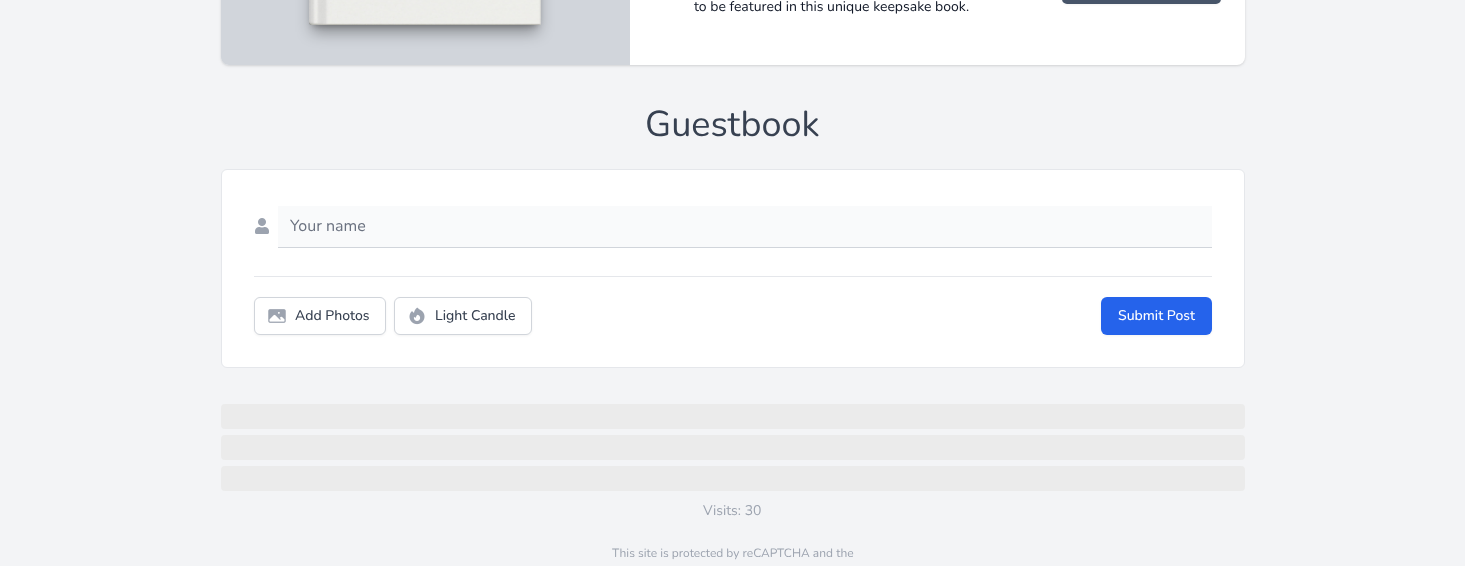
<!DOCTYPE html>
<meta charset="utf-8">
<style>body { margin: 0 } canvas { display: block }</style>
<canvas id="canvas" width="1465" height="566"></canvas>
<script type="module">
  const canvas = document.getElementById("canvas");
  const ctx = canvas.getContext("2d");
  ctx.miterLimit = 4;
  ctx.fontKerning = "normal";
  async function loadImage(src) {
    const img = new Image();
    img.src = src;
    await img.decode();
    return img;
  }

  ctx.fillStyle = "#f3f4f6";
  ctx.fillRect(0, 0, 1465, 566);
  ctx.fillStyle = "rgba(0, 0, 0, 0.1)";
  ctx.filter = "blur(1px)";
  ctx.beginPath();
  ctx.roundRect(222, -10, 1022, 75, 7);
  ctx.fill();
  ctx.filter = "none";
  ctx.filter = "blur(1.5px)";
  ctx.beginPath();
  ctx.roundRect(221, -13, 1024, 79, 8);
  ctx.fill();
  ctx.filter = "none";
  ctx.fillStyle = "#ffffff";
  ctx.beginPath();
  ctx.roundRect(221, -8, 1024, 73, 8);
  ctx.fill();
  ctx.fillStyle = "#d1d5db";
  ctx.beginPath();
  ctx.moveTo(229, -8);
  ctx.lineTo(630, -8);
  ctx.lineTo(630, 65);
  ctx.lineTo(229, 65);
  ctx.bezierCurveTo(224.5, 65, 221, 61.5, 221, 57);
  ctx.lineTo(221, 0);
  ctx.bezierCurveTo(221, -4.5, 224.5, -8, 229, -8);
  ctx.closePath();
  ctx.fill();
  ctx.fillStyle = "rgba(0, 0, 0, 0.35)";
  ctx.filter = "blur(3px)";
  ctx.beginPath();
  ctx.rect(313, -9, 224, 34);
  ctx.fill();
  ctx.filter = "none";
  ctx.filter = "blur(7.5px)";
  ctx.beginPath();
  ctx.rect(312, -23, 226, 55);
  ctx.fill();
  ctx.filter = "none";
  ctx.drawImage(await loadImage("img1.png"), 309, 0, 232, 25);
  ctx.drawImage(await loadImage("img2.png"), 309, 0, 232, 25);
  ctx.font = "14px Nunito";
  ctx.fillStyle = "#111827";
  ctx.fillText("to be featured in this unique keepsake book.", 694, 11);
  ctx.fillStyle = "rgba(0, 0, 0, 0.05)";
  ctx.filter = "blur(1px)";
  ctx.beginPath();
  ctx.roundRect(1062, -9, 159, 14, 6);
  ctx.fill();
  ctx.filter = "none";
  ctx.fillStyle = "#475569";
  ctx.beginPath();
  ctx.roundRect(1062, -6, 159, 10, 6);
  ctx.fill();
  ctx.font = "36px Nunito";
  ctx.fillStyle = "#374151";
  ctx.fillText("Guestbook", 645, 136);
  ctx.fillStyle = "#ffffff";
  ctx.beginPath();
  ctx.roundRect(221.5, 169.5, 1023, 198, 5.5);
  ctx.fill();
  ctx.strokeStyle = "#e5e7eb";
  ctx.stroke();
  ctx.drawImage(await loadImage("img3.png"), 255, 218, 14, 16);
  ctx.fillStyle = "#d1d5db";
  ctx.fillRect(278, 247, 934, 1);
  ctx.fillStyle = "#f9fafb";
  ctx.fillRect(278, 206, 934, 41);
  ctx.font = "16px Nunito";
  ctx.fillStyle = "#6b7280";
  ctx.fillText("Your name", 290, 231);
  ctx.fillStyle = "#e5e7eb";
  ctx.fillRect(254, 276, 958, 1);
  ctx.fillStyle = "rgba(0, 0, 0, 0.05)";
  ctx.filter = "blur(1px)";
  ctx.beginPath();
  ctx.roundRect(254, 298, 132, 38, 6);
  ctx.fill();
  ctx.filter = "none";
  ctx.fillStyle = "#ffffff";
  ctx.beginPath();
  ctx.roundRect(254.5, 297.5, 131, 37, 5.5);
  ctx.fill();
  ctx.strokeStyle = "#d1d5db";
  ctx.stroke();
  ctx.drawImage(await loadImage("img4.png"), 268, 309, 18, 14);
  ctx.font = "500 14px Nunito";
  ctx.fillStyle = "#374151";
  ctx.fillText("Add Photos", 295, 320);
  ctx.fillStyle = "rgba(0, 0, 0, 0.05)";
  ctx.filter = "blur(1px)";
  ctx.beginPath();
  ctx.roundRect(394, 298, 138, 38, 6);
  ctx.fill();
  ctx.filter = "none";
  ctx.fillStyle = "#ffffff";
  ctx.beginPath();
  ctx.roundRect(394.5, 297.5, 137, 37, 5.5);
  ctx.fill();
  ctx.stroke();
  ctx.drawImage(await loadImage("img5.png"), 409, 307, 16, 18);
  ctx.fillStyle = "#374151";
  ctx.fillText("Light Candle", 435, 320);
  ctx.fillStyle = "rgba(0, 0, 0, 0.05)";
  ctx.filter = "blur(1px)";
  ctx.beginPath();
  ctx.roundRect(1101, 298, 111, 38, 6);
  ctx.fill();
  ctx.filter = "none";
  ctx.fillStyle = "#2563eb";
  ctx.beginPath();
  ctx.roundRect(1101, 297, 111, 38, 6);
  ctx.fill();
  ctx.fillStyle = "#ffffff";
  ctx.fillText("Submit Post", 1118, 320);
  ctx.fillStyle = "#ebebeb";
  ctx.beginPath();
  ctx.roundRect(221, 404, 1024, 25, 4);
  ctx.fill();
  ctx.beginPath();
  ctx.roundRect(221, 435, 1024, 25, 4);
  ctx.fill();
  ctx.beginPath();
  ctx.roundRect(221, 466, 1024, 25, 4);
  ctx.fill();
  ctx.font = "14px Nunito";
  ctx.fillStyle = "#9ca3af";
  ctx.fillText("Visits: 30", 703, 515);
  ctx.font = "12px Nunito";
  ctx.fillText("This site is protected by reCAPTCHA and the", 612, 557);
</script>
